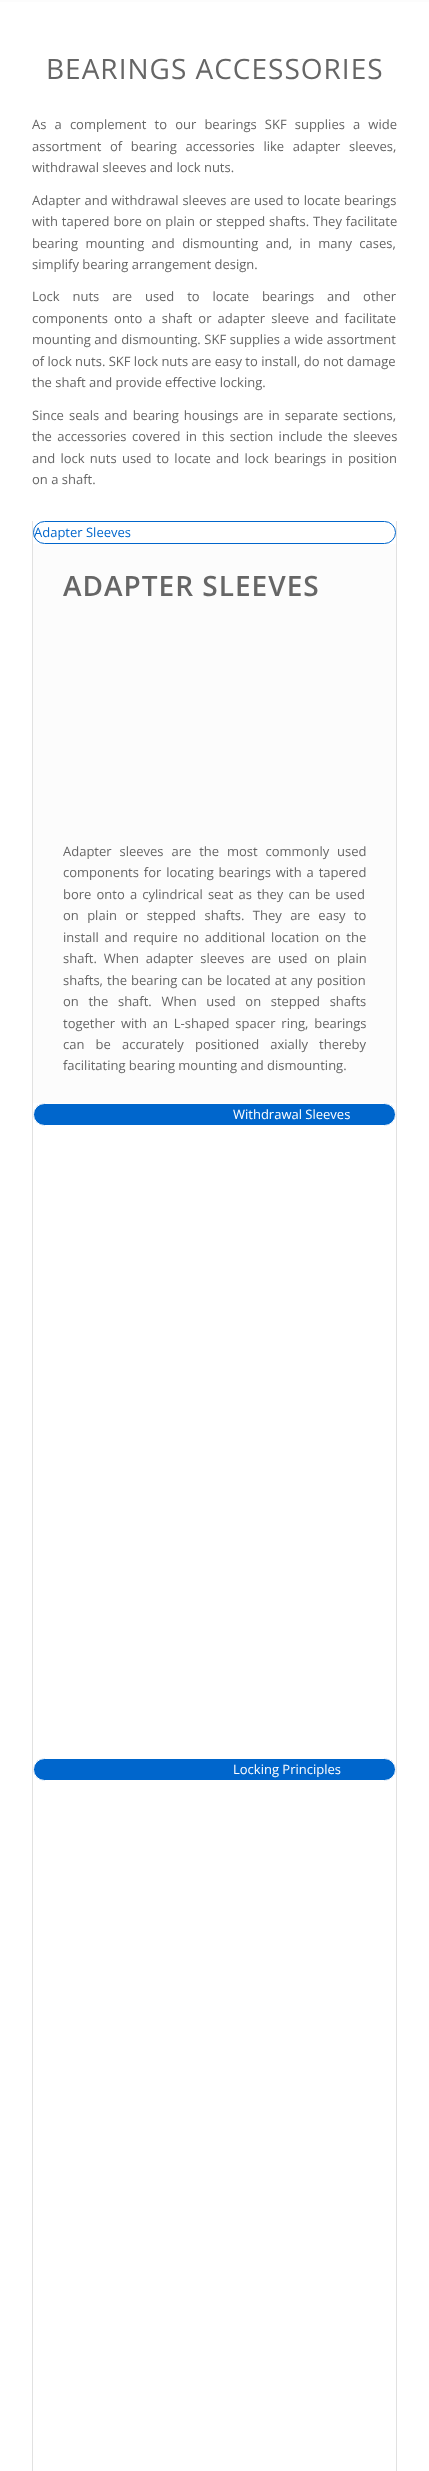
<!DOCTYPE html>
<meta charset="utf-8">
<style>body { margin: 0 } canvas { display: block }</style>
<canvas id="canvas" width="429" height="2471"></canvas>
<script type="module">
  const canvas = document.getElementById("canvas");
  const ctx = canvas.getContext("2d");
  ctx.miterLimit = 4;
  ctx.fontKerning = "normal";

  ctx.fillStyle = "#ffffff";
  ctx.fillRect(0, 0, 429, 2471);
  ctx.fillStyle = "#fcfcfc";
  ctx.fillRect(0, 0, 429, 2);
  ctx.letterSpacing = "1px";
  ctx.font = "28px Open Sans";
  ctx.fillStyle = "#666666";
  ctx.fillText("BEARINGS ACCESSORIES", 46, 79);
  ctx.letterSpacing = "0px";
  ctx.wordSpacing = "4.75px";
  ctx.font = "13px Open Sans";
  ctx.fillText("As a complement to our bearings SKF supplies a wide", 32, 129);
  ctx.wordSpacing = "5.25px";
  ctx.fillText("assortment of bearing accessories like adapter sleeves,", 32, 151);
  ctx.wordSpacing = "0px";
  ctx.fillText("withdrawal sleeves and lock nuts.", 32, 172);
  ctx.wordSpacing = "0.5px";
  ctx.fillText("Adapter and withdrawal sleeves are used to locate bearings", 32, 205);
  ctx.fillText("with tapered bore on plain or stepped shafts. They facilitate", 32, 226);
  ctx.wordSpacing = "4px";
  ctx.fillText("bearing mounting and dismounting and, in many cases,", 32, 248);
  ctx.wordSpacing = "0px";
  ctx.fillText("simplify bearing arrangement design.", 32, 269);
  ctx.wordSpacing = "9.5px";
  ctx.fillText("Lock nuts are used to locate bearings and other", 32, 301);
  ctx.wordSpacing = "2.75px";
  ctx.fillText("components onto a shaft or adapter sleeve and facilitate", 32, 323);
  ctx.wordSpacing = "0.25px";
  ctx.fillText("mounting and dismounting. SKF supplies a wide assortment", 32, 344);
  ctx.wordSpacing = "0px";
  ctx.fillText("of lock nuts. SKF lock nuts are easy to install, do not damage", 32, 366);
  ctx.fillText("the shaft and provide effective locking.", 32, 387);
  ctx.wordSpacing = "1.75px";
  ctx.fillText("Since seals and bearing housings are in separate sections,", 32, 420);
  ctx.wordSpacing = "2px";
  ctx.fillText("the accessories covered in this section include the sleeves", 32, 441);
  ctx.wordSpacing = "1.9px";
  ctx.fillText("and lock nuts used to locate and lock bearings in position", 32, 463);
  ctx.wordSpacing = "0px";
  ctx.fillText("on a shaft.", 32, 484);
  ctx.fillStyle = "#e1e1e1";
  ctx.fillRect(396, 521, 1, 1950);
  ctx.fillRect(32, 521, 1, 1950);
  ctx.beginPath();
  ctx.roundRect(33.5, 521.5, 362, 22, 11);
  ctx.strokeStyle = "#0066cc";
  ctx.stroke();
  ctx.fillStyle = "#0066cc";
  ctx.fillText("Adapter Sleeves", 34, 537);
  ctx.fillStyle = "#fcfcfc";
  ctx.fillRect(33, 544, 363, 559);
  ctx.letterSpacing = "1px";
  ctx.font = "600 28px Open Sans";
  ctx.fillStyle = "#666666";
  ctx.fillText("ADAPTER SLEEVES", 63, 596);
  ctx.letterSpacing = "0px";
  ctx.wordSpacing = "4.5px";
  ctx.font = "13px Open Sans";
  ctx.fillText("Adapter sleeves are the most commonly used", 63, 856);
  ctx.wordSpacing = "1.5px";
  ctx.fillText("components for locating bearings with a tapered", 63, 877);
  ctx.wordSpacing = "1.75px";
  ctx.fillText("bore onto a cylindrical seat as they can be used", 63, 899);
  ctx.wordSpacing = "5px";
  ctx.fillText("on plain or stepped shafts. They are easy to", 63, 920);
  ctx.wordSpacing = "2.25px";
  ctx.fillText("install and require no additional location on the", 63, 942);
  ctx.wordSpacing = "3.5px";
  ctx.fillText("shaft. When adapter sleeves are used on plain", 63, 963);
  ctx.wordSpacing = "0.75px";
  ctx.fillText("shafts, the bearing can be located at any position", 63, 985);
  ctx.wordSpacing = "6.25px";
  ctx.fillText("on the shaft. When used on stepped shafts", 63, 1006);
  ctx.wordSpacing = "2.5px";
  ctx.fillText("together with an L-shaped spacer ring, bearings", 63, 1028);
  ctx.wordSpacing = "7.75px";
  ctx.fillText("can be accurately positioned axially thereby", 63, 1049);
  ctx.wordSpacing = "0px";
  ctx.fillText("facilitating bearing mounting and dismounting.", 63, 1070);
  ctx.fillStyle = "#0066cc";
  ctx.beginPath();
  ctx.roundRect(33.5, 1103.5, 362, 22, 11);
  ctx.fill();
  ctx.strokeStyle = "#ffffff";
  ctx.stroke();
  ctx.fillStyle = "#ffffff";
  ctx.fillText("Withdrawal Sleeves", 233, 1119);
  ctx.fillStyle = "#0066cc";
  ctx.beginPath();
  ctx.roundRect(33.5, 1758.5, 362, 22, 11);
  ctx.fill();
  ctx.stroke();
  ctx.fillStyle = "#ffffff";
  ctx.fillText("Locking Principles", 233, 1774);
</script>
